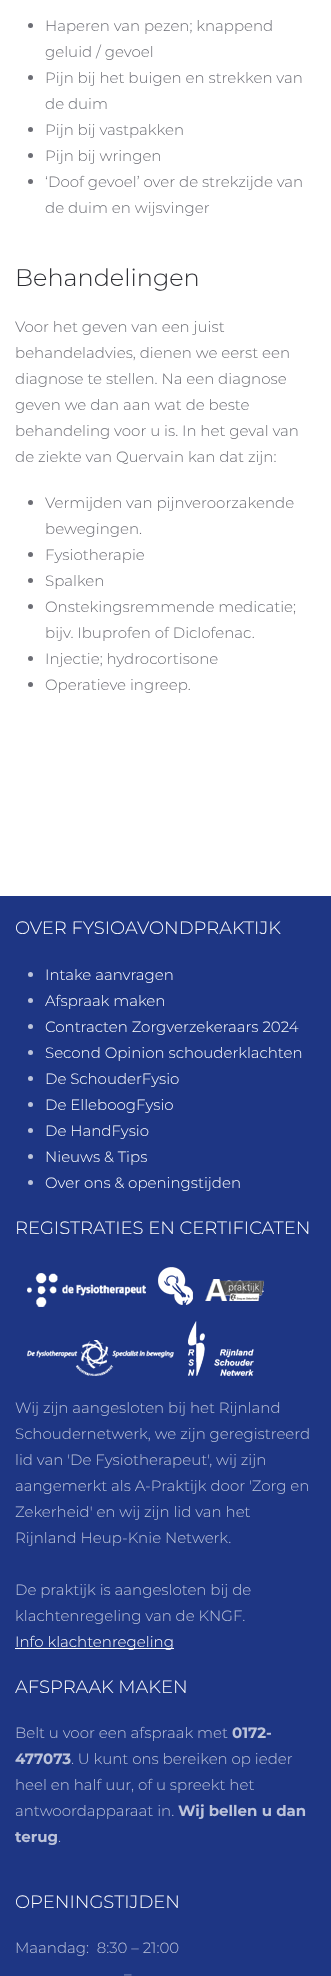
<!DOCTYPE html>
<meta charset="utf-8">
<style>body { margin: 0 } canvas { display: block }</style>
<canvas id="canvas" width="331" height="1976"></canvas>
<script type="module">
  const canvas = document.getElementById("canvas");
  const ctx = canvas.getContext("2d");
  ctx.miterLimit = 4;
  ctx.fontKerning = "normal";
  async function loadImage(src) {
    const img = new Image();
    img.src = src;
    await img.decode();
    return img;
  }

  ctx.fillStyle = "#ffffff";
  ctx.fillRect(0, 0, 331, 1976);
  ctx.fillStyle = "#6c6d74";
  ctx.beginPath();
  ctx.arc(30.5, 25.5, 2.5, 0, Math.PI * 2);
  ctx.fill();
  ctx.font = "300 15px Montserrat";
  ctx.fillText("Haperen van pezen; knappend", 45, 31);
  ctx.fillText("geluid / gevoel", 45, 57);
  ctx.beginPath();
  ctx.arc(30.5, 77.5, 2.5, 0, Math.PI * 2);
  ctx.fill();
  ctx.fillText("Pijn bij het buigen en strekken van", 45, 83);
  ctx.fillText("de duim", 45, 109);
  ctx.beginPath();
  ctx.arc(30.5, 129.5, 2.5, 0, Math.PI * 2);
  ctx.fill();
  ctx.fillText("Pijn bij vastpakken", 45, 135);
  ctx.beginPath();
  ctx.arc(30.5, 155.5, 2.5, 0, Math.PI * 2);
  ctx.fill();
  ctx.fillText("Pijn bij wringen", 45, 161);
  ctx.beginPath();
  ctx.arc(30.5, 181.5, 2.5, 0, Math.PI * 2);
  ctx.fill();
  ctx.fillText("‘Doof gevoel’ over de strekzijde van", 45, 187);
  ctx.fillText("de duim en wijsvinger", 45, 213);
  ctx.font = "300 24px Montserrat";
  ctx.fillStyle = "#2d2e33";
  ctx.fillText("Behandelingen", 15, 286);
  ctx.font = "300 15px Montserrat";
  ctx.fillStyle = "#6c6d74";
  ctx.fillText("Voor het geven van een juist", 15, 332);
  ctx.fillText("behandeladvies, dienen we eerst een", 15, 358);
  ctx.fillText("diagnose te stellen. Na een diagnose", 15, 384);
  ctx.fillText("geven we dan aan wat de beste", 15, 410);
  ctx.fillText("behandeling voor u is. In het geval van", 15, 436);
  ctx.fillText("de ziekte van Quervain kan dat zijn:", 15, 462);
  ctx.beginPath();
  ctx.arc(30.5, 502.5, 2.5, 0, Math.PI * 2);
  ctx.fill();
  ctx.fillText("Vermijden van pijnveroorzakende", 45, 508);
  ctx.fillText("bewegingen.", 45, 534);
  ctx.beginPath();
  ctx.arc(30.5, 554.5, 2.5, 0, Math.PI * 2);
  ctx.fill();
  ctx.fillText("Fysiotherapie", 45, 560);
  ctx.beginPath();
  ctx.arc(30.5, 580.5, 2.5, 0, Math.PI * 2);
  ctx.fill();
  ctx.fillText("Spalken", 45, 586);
  ctx.beginPath();
  ctx.arc(30.5, 606.5, 2.5, 0, Math.PI * 2);
  ctx.fill();
  ctx.fillText("Onstekingsremmende medicatie;", 45, 612);
  ctx.fillText("bijv. Ibuprofen of Diclofenac.", 45, 638);
  ctx.beginPath();
  ctx.arc(30.5, 658.5, 2.5, 0, Math.PI * 2);
  ctx.fill();
  ctx.fillText("Injectie; hydrocortisone", 45, 664);
  ctx.beginPath();
  ctx.arc(30.5, 684.5, 2.5, 0, Math.PI * 2);
  ctx.fill();
  ctx.fillText("Operatieve ingreep.", 45, 690);
  ctx.fillStyle = "#1e3684";
  ctx.fillRect(0, 896, 331, 1080);
  ctx.font = "300 18px Montserrat";
  ctx.fillStyle = "#ffffff";
  ctx.fillText("OVER FYSIOAVONDPRAKTIJK", 15, 934);
  ctx.fillStyle = "#bcc3da";
  ctx.beginPath();
  ctx.arc(30.5, 974.5, 2.5, 0, Math.PI * 2);
  ctx.fill();
  ctx.font = "300 15px Montserrat";
  ctx.fillStyle = "#ffffff";
  ctx.fillText("Intake aanvragen", 45, 980);
  ctx.fillStyle = "#bcc3da";
  ctx.beginPath();
  ctx.arc(30.5, 1000.5, 2.5, 0, Math.PI * 2);
  ctx.fill();
  ctx.fillStyle = "#ffffff";
  ctx.fillText("Afspraak maken", 45, 1006);
  ctx.fillStyle = "#bcc3da";
  ctx.beginPath();
  ctx.arc(30.5, 1026.5, 2.5, 0, Math.PI * 2);
  ctx.fill();
  ctx.fillStyle = "#ffffff";
  ctx.fillText("Contracten Zorgverzekeraars 2024", 45, 1032);
  ctx.fillStyle = "#bcc3da";
  ctx.beginPath();
  ctx.arc(30.5, 1052.5, 2.5, 0, Math.PI * 2);
  ctx.fill();
  ctx.fillStyle = "#ffffff";
  ctx.fillText("Second Opinion schouderklachten", 45, 1058);
  ctx.fillStyle = "#bcc3da";
  ctx.beginPath();
  ctx.arc(30.5, 1078.5, 2.5, 0, Math.PI * 2);
  ctx.fill();
  ctx.fillStyle = "#ffffff";
  ctx.fillText("De SchouderFysio", 45, 1084);
  ctx.fillStyle = "#bcc3da";
  ctx.beginPath();
  ctx.arc(30.5, 1104.5, 2.5, 0, Math.PI * 2);
  ctx.fill();
  ctx.fillStyle = "#ffffff";
  ctx.fillText("De ElleboogFysio", 45, 1110);
  ctx.fillStyle = "#bcc3da";
  ctx.beginPath();
  ctx.arc(30.5, 1130.5, 2.5, 0, Math.PI * 2);
  ctx.fill();
  ctx.fillStyle = "#ffffff";
  ctx.fillText("De HandFysio", 45, 1136);
  ctx.fillStyle = "#bcc3da";
  ctx.beginPath();
  ctx.arc(30.5, 1156.5, 2.5, 0, Math.PI * 2);
  ctx.fill();
  ctx.fillStyle = "#ffffff";
  ctx.fillText("Nieuws & Tips", 45, 1162);
  ctx.fillStyle = "#bcc3da";
  ctx.beginPath();
  ctx.arc(30.5, 1182.5, 2.5, 0, Math.PI * 2);
  ctx.fill();
  ctx.fillStyle = "#ffffff";
  ctx.fillText("Over ons & openingstijden", 45, 1188);
  ctx.font = "300 18px Montserrat";
  ctx.fillText("REGISTRATIES EN CERTIFICATEN", 15, 1234);
  ctx.drawImage(await loadImage("img1.png"), 27, 1267, 237, 109);
  ctx.font = "300 15px Montserrat";
  ctx.fillStyle = "#bcc3da";
  ctx.fillText("Wij zijn aangesloten bij het Rijnland", 15, 1413);
  ctx.fillText("Schoudernetwerk, we zijn geregistreerd", 15, 1439);
  ctx.fillText("lid van 'De Fysiotherapeut', wij zijn", 15, 1465);
  ctx.fillText("aangemerkt als A-Praktijk door 'Zorg en", 15, 1491);
  ctx.fillText("Zekerheid' en wij zijn lid van het", 15, 1517);
  ctx.fillText("Rijnland Heup-Knie Netwerk.", 15, 1543);
  ctx.fillText("De praktijk is aangesloten bij de", 15, 1595);
  ctx.fillText("klachtenregeling van de KNGF.", 15, 1621);
  ctx.fillStyle = "#ffffff";
  ctx.fillRect(15, 1648, 159, 1);
  ctx.fillText("Info klachtenregeling", 15, 1647);
  ctx.font = "300 18px Montserrat";
  ctx.fillText("AFSPRAAK MAKEN", 15, 1693);
  ctx.font = "300 15px Montserrat";
  ctx.fillStyle = "#bcc3da";
  ctx.fillText("Belt u voor een afspraak met", 15, 1738);
  ctx.font = "bold 15px Montserrat";
  ctx.fillText("0172-", 232, 1738);
  ctx.fillText("477073", 15, 1764);
  ctx.font = "300 15px Montserrat";
  ctx.fillText(". U kunt ons bereiken op ieder", 71, 1764);
  ctx.fillText("heel en half uur, of u spreekt het", 15, 1790);
  ctx.fillText("antwoordapparaat in.", 15, 1816);
  ctx.font = "bold 15px Montserrat";
  ctx.fillText("Wij bellen u dan", 178, 1816);
  ctx.fillText("terug", 15, 1842);
  ctx.font = "300 15px Montserrat";
  ctx.fillText(".", 58, 1842);
  ctx.font = "300 18px Montserrat";
  ctx.fillStyle = "#ffffff";
  ctx.fillText("OPENINGSTIJDEN", 15, 1908);
  ctx.font = "300 15px Montserrat";
  ctx.fillStyle = "#bcc3da";
  ctx.fillText("Maandag:  8:30 – 21:00", 15, 1953);
  ctx.fillText("–", 124, 1979);
</script>
